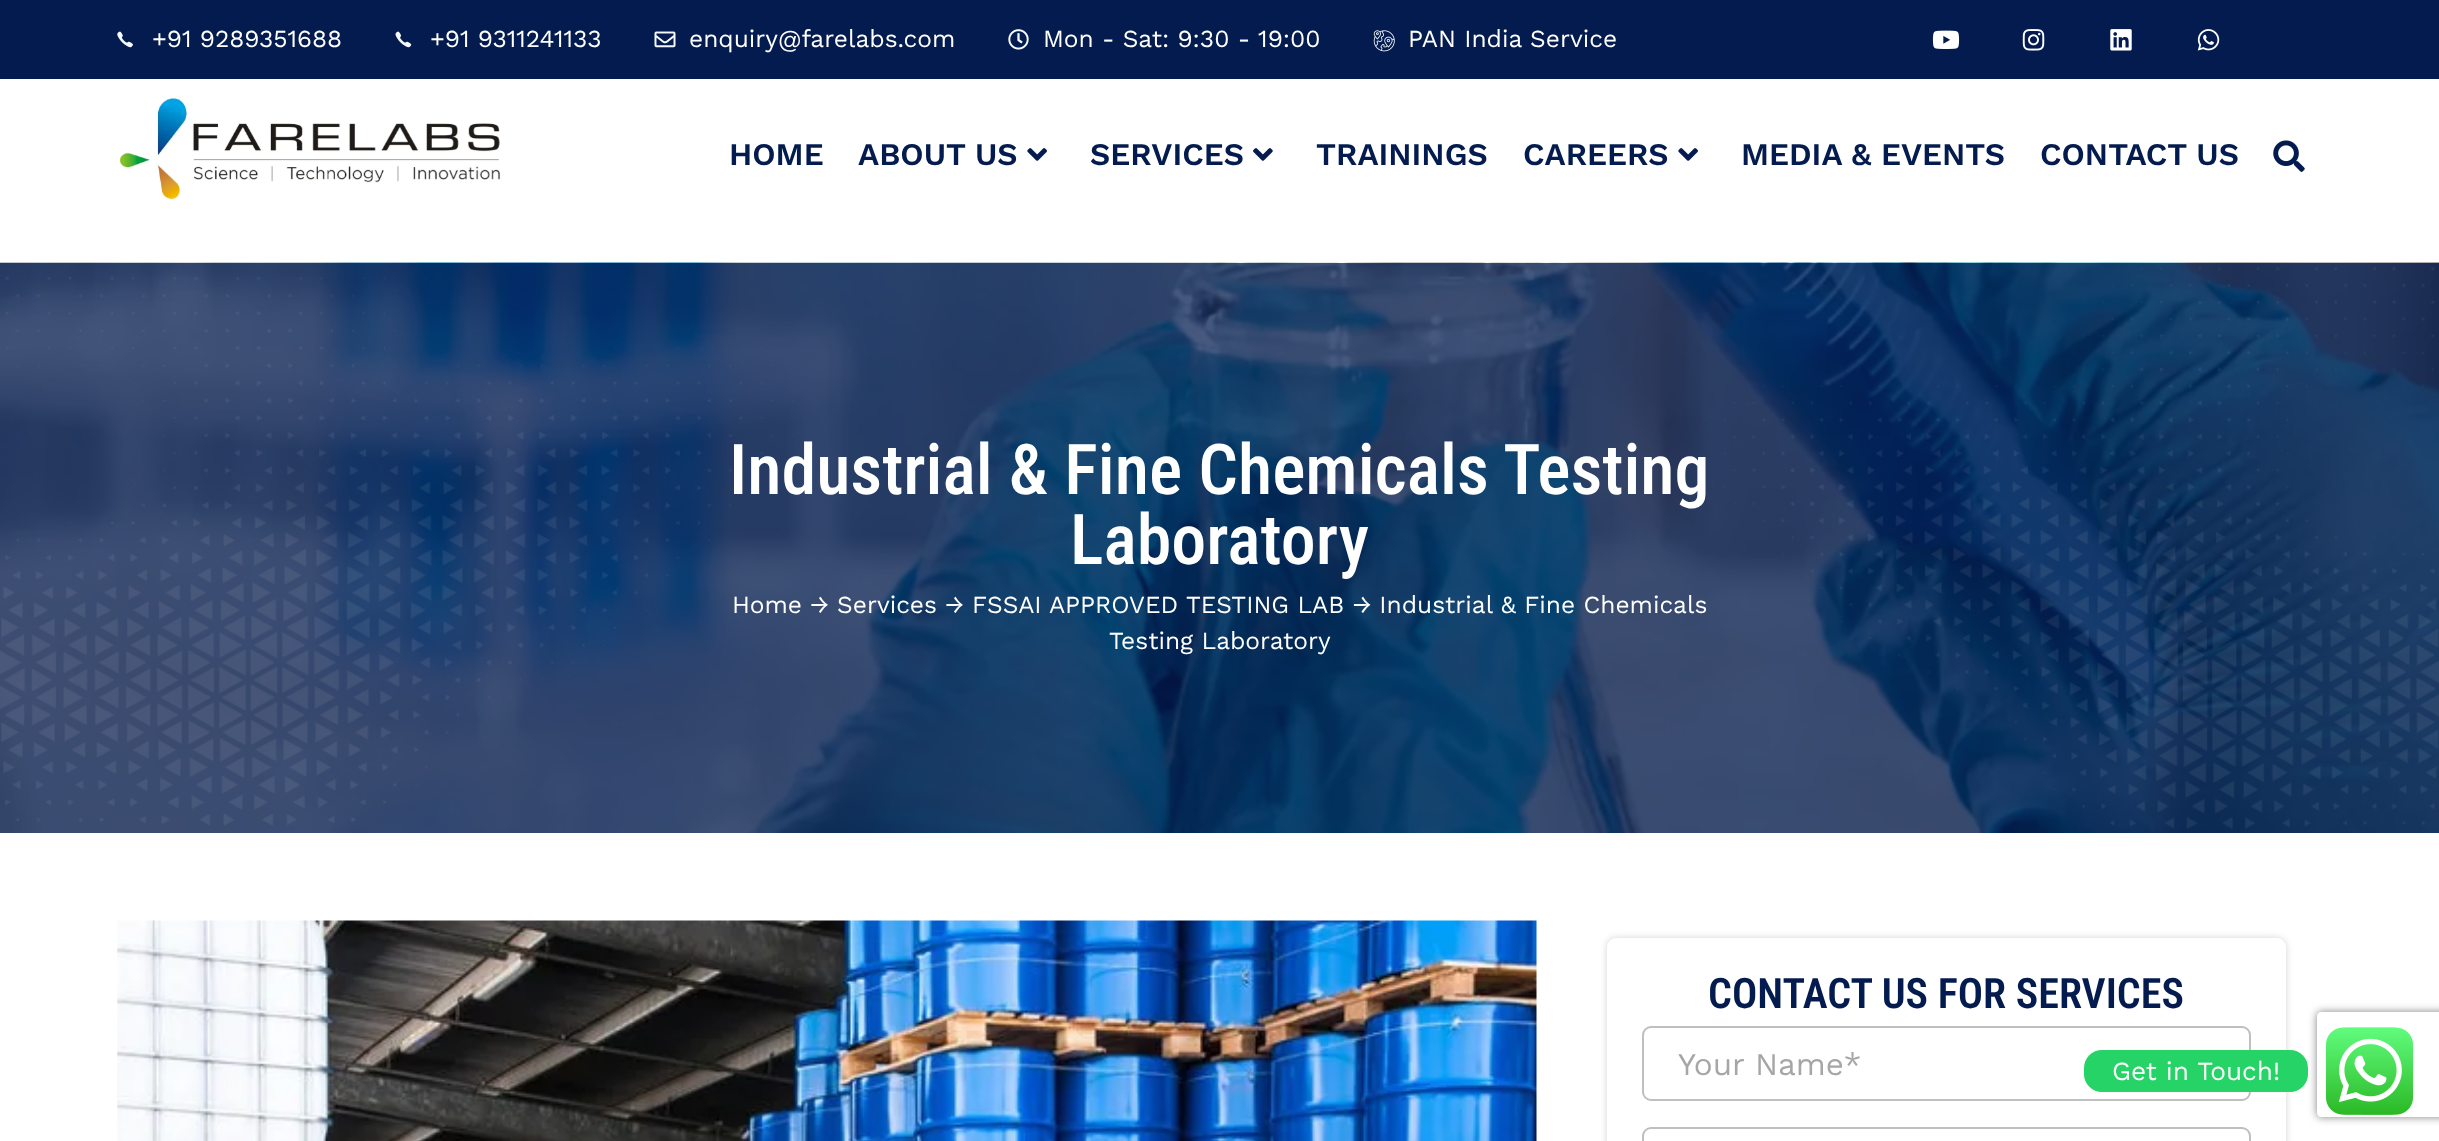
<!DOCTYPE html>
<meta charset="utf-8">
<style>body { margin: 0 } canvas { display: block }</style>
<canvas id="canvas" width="2439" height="1141"></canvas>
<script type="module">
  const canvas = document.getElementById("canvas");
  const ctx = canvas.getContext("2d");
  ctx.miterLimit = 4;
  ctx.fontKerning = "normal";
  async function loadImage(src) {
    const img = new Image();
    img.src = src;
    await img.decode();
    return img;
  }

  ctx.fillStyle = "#ffffff";
  ctx.fillRect(0, 0, 2439, 1141);
  ctx.fillStyle = "#031b4e";
  ctx.fillRect(0, 0, 2439, 79);
  ctx.drawImage(await loadImage("img1.png"), 117, 31, 16, 17);
  ctx.font = "24.5px Work Sans";
  ctx.fillStyle = "#ffffff";
  ctx.fillText("+91 9289351688", 152, 47);
  ctx.drawImage(await loadImage("img2.png"), 395, 31, 17, 17);
  ctx.fillText("+91 9311241133", 430, 47);
  ctx.drawImage(await loadImage("img3.png"), 654, 31, 22, 17);
  ctx.fillText("enquiry@farelabs.com", 689, 47);
  ctx.drawImage(await loadImage("img4.png"), 1008, 29, 21, 21);
  ctx.fillText("Mon - Sat: 9:30 - 19:00", 1043, 47);
  ctx.drawImage(await loadImage("img5.png"), 1373, 30, 22, 22);
  ctx.fillText("PAN India Service", 1408, 47);
  ctx.drawImage(await loadImage("img6.png"), 1932, 30, 28, 19);
  ctx.drawImage(await loadImage("img7.png"), 2022, 29, 23, 22);
  ctx.drawImage(await loadImage("img8.png"), 2110, 29, 22, 22);
  ctx.drawImage(await loadImage("img9.png"), 2197, 29, 23, 22);
  ctx.drawImage(await loadImage("img10.png"), 119, 97, 382, 103);
  ctx.font = "600 31.5px Work Sans";
  ctx.fillStyle = "#031b4e";
  ctx.fillText("HOME", 729, 165);
  ctx.fillText("ABOUT US", 858, 165);
  ctx.drawImage(await loadImage("img11.png"), 1027, 148, 20, 13);
  ctx.fillText("SERVICES", 1090, 165);
  ctx.drawImage(await loadImage("img12.png"), 1253, 148, 20, 13);
  ctx.fillText("TRAININGS", 1316, 165);
  ctx.fillText("CAREERS", 1523, 165);
  ctx.drawImage(await loadImage("img11.png"), 1678, 148, 20, 13);
  ctx.fillText("MEDIA & EVENTS", 1741, 165);
  ctx.fillText("CONTACT US", 2040, 165);
  ctx.drawImage(await loadImage("img13.png"), 2273, 140, 32, 32);
  ctx.drawImage(await loadImage("img14.png"), 0, 262, 2439, 571);
  ctx.drawImage(await loadImage("img15.png"), 0, 267, 2439, 566);
  ctx.font = "500 70px Roboto Condensed";
  ctx.fillStyle = "#ffffff";
  ctx.fillText("Industrial & Fine Chemicals Testing", 729, 494);
  ctx.fillText("Laboratory", 1070, 564);
  ctx.font = "24.5px Work Sans";
  ctx.fillText("Home → Services → FSSAI APPROVED TESTING LAB → Industrial & Fine Chemicals", 732, 613);
  ctx.fillText("Testing Laboratory", 1109, 649);
  ctx.drawImage(await loadImage("img16.png"), 117, 920, 1420, 221);
  ctx.fillStyle = "rgba(0, 0, 0, 0.17)";
  ctx.filter = "blur(3.5px)";
  ctx.beginPath();
  ctx.roundRect(1607, 938, 679, 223, 9);
  ctx.fill();
  ctx.filter = "none";
  ctx.fillStyle = "#ffffff";
  ctx.beginPath();
  ctx.roundRect(1607, 938, 679, 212, 9);
  ctx.fill();
  ctx.font = "600 42px Roboto Condensed";
  ctx.fillStyle = "#031b4e";
  ctx.fillText("CONTACT US FOR SERVICES", 1708, 1008);
  ctx.beginPath();
  ctx.roundRect(1643, 1027, 607, 73, 8);
  ctx.strokeStyle = "#bfbfbf";
  ctx.lineWidth = 2;
  ctx.stroke();
  ctx.font = "31.5px Work Sans";
  ctx.fillStyle = "#a6a6a6";
  ctx.fillText("Your Name*", 1678, 1075);
  ctx.beginPath();
  ctx.roundRect(1643, 1128, 607, 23, 8);
  ctx.stroke();
  ctx.save();
  ctx.beginPath();
  ctx.moveTo(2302, 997);
  ctx.lineTo(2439, 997);
  ctx.lineTo(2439, 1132);
  ctx.lineTo(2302, 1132);
  ctx.closePath();
  ctx.moveTo(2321, 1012);
  ctx.lineTo(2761, 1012);
  ctx.bezierCurveTo(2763, 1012, 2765, 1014, 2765, 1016);
  ctx.lineTo(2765, 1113);
  ctx.bezierCurveTo(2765, 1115, 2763, 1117, 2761, 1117);
  ctx.lineTo(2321, 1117);
  ctx.bezierCurveTo(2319, 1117, 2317, 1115, 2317, 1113);
  ctx.lineTo(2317, 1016);
  ctx.bezierCurveTo(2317, 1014, 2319, 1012, 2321, 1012);
  ctx.closePath();
  ctx.clip("evenodd");
  ctx.fillStyle = "#808080";
  ctx.filter = "blur(4.5px)";
  ctx.beginPath();
  ctx.roundRect(2317, 1012, 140, 105, 4);
  ctx.fill();
  ctx.filter = "none";
  ctx.restore();
  ctx.fillStyle = "#25d366";
  ctx.beginPath();
  ctx.roundRect(2084, 1050, 224, 42, 18);
  ctx.fill();
  ctx.font = "26.25px Work Sans";
  ctx.fillStyle = "#ffffff";
  ctx.fillText("Get in Touch!", 2112, 1080);
  ctx.drawImage(await loadImage("img17.png"), 2326, 1027, 87, 88);
</script>
